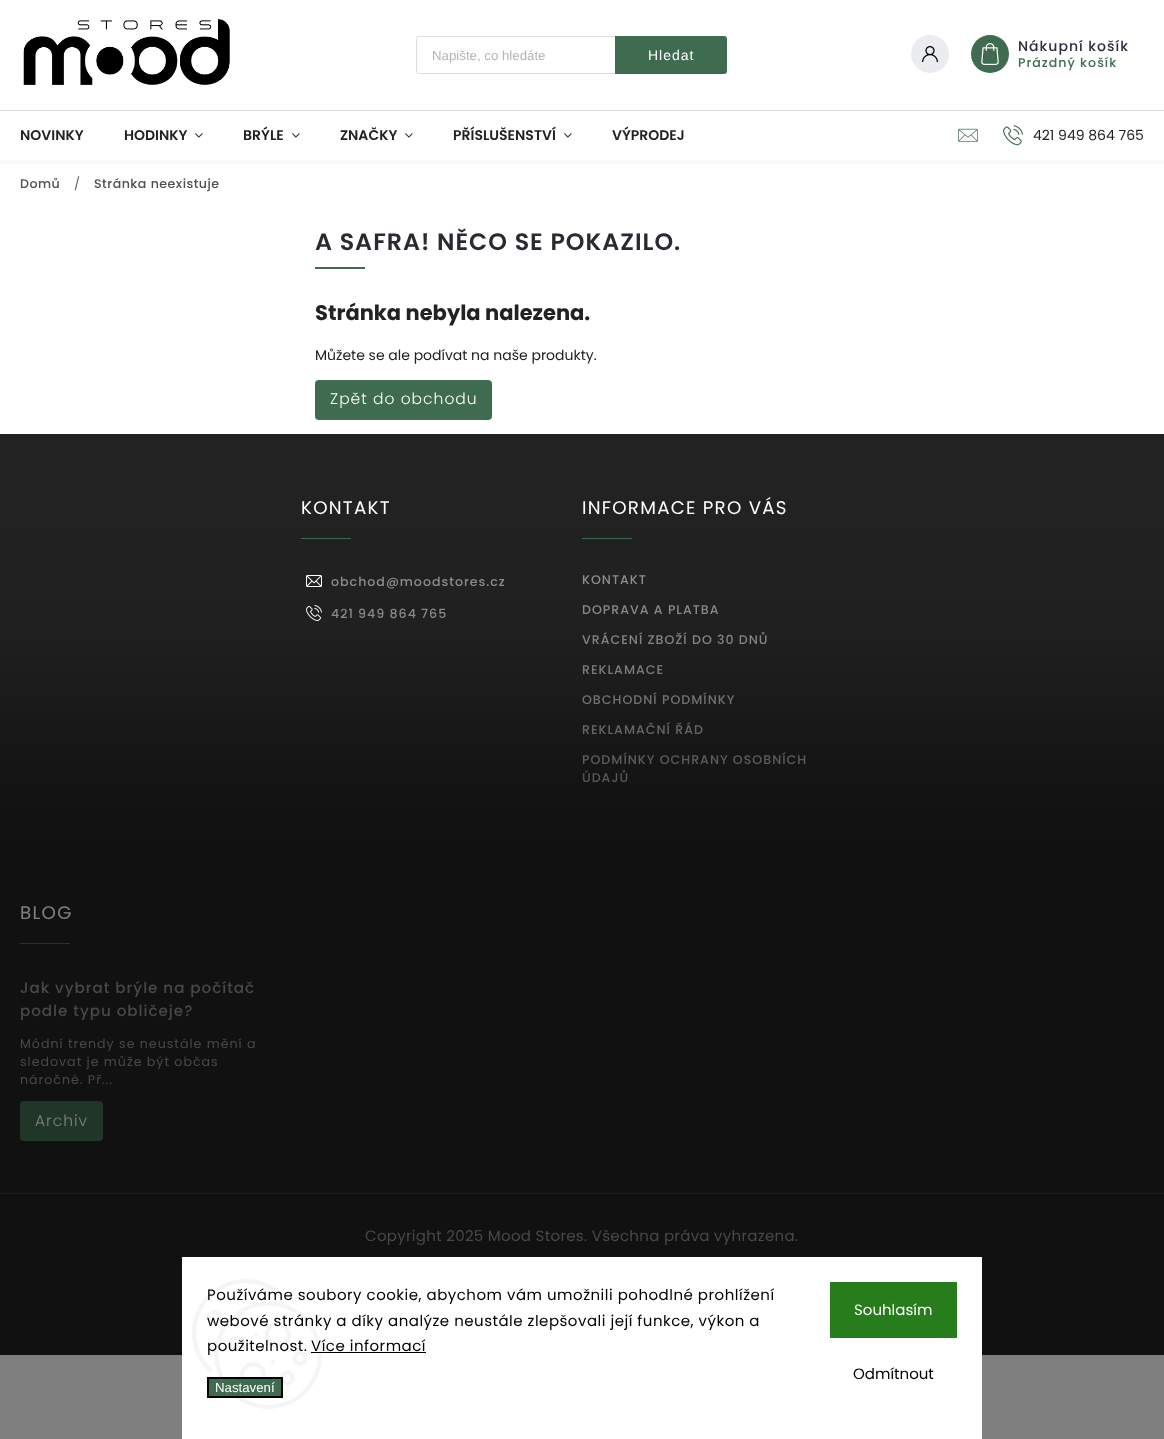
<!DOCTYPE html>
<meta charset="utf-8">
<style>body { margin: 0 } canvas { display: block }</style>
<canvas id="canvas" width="1164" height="1439"></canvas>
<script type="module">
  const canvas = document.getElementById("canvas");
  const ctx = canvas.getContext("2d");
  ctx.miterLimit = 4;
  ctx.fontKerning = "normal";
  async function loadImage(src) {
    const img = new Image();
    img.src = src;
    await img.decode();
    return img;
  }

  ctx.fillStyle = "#ffffff";
  ctx.fillRect(0, 0, 1164, 1439);
  ctx.fillStyle = "#dfdfdf";
  ctx.fillRect(0, 110, 1164, 1);
  ctx.drawImage(await loadImage("img1.png"), 23, 19, 207, 66);
  ctx.beginPath();
  ctx.roundRect(416.5, 36.5, 199, 37, [2.5, 0, 0, 2.5]);
  ctx.strokeStyle = "#dfdfdf";
  ctx.stroke();
  ctx.font = "13.25px Liberation Sans";
  ctx.fillStyle = "#b4b4b4";
  ctx.fillText("Napište, co hledáte", 432, 60);
  ctx.fillStyle = "#3f6c51";
  ctx.beginPath();
  ctx.roundRect(615, 36, 112, 38, [0, 3, 3, 0]);
  ctx.fill();
  ctx.letterSpacing = "1px";
  ctx.font = "14px Liberation Sans";
  ctx.fillStyle = "#ffffff";
  ctx.fillText("Hledat", 648, 60);
  ctx.fillStyle = "#eaecef";
  ctx.beginPath();
  ctx.arc(930, 54, 19, 0, Math.PI * 2);
  ctx.fill();
  ctx.drawImage(await loadImage("img2.png"), 922, 46, 16, 16);
  ctx.fillStyle = "#3f6c51";
  ctx.beginPath();
  ctx.arc(990, 54, 19, 0, Math.PI * 2);
  ctx.fill();
  ctx.drawImage(await loadImage("img3.png"), 981, 43, 18, 22);
  ctx.font = "500 14px Poppins";
  ctx.fillStyle = "#2b2a40";
  ctx.fillText("Nákupní košík", 1018, 51);
  ctx.font = "500 12.6px Poppins";
  ctx.fillStyle = "#3f6c51";
  ctx.fillText("Prázdný košík", 1018, 67);
  ctx.letterSpacing = "0px";
  ctx.font = "600 14px Poppins";
  ctx.fillStyle = "#222222";
  ctx.fillText("NOVINKY", 20, 140);
  ctx.fillText("HODINKY", 124, 140);
  ctx.drawImage(await loadImage("img4.png"), 195, 133, 8, 5);
  ctx.fillText("BRÝLE", 243, 140);
  ctx.drawImage(await loadImage("img4.png"), 292, 133, 8, 5);
  ctx.fillText("ZNAČKY", 340, 140);
  ctx.drawImage(await loadImage("img4.png"), 405, 133, 8, 5);
  ctx.fillText("PŘÍSLUŠENSTVÍ", 453, 140);
  ctx.drawImage(await loadImage("img4.png"), 564, 133, 8, 5);
  ctx.fillText("VÝPRODEJ", 612, 140);
  ctx.drawImage(await loadImage("img5.png"), 958, 128, 20, 14);
  ctx.drawImage(await loadImage("img6.png"), 1003, 125, 20, 21);
  ctx.font = "14px Poppins";
  ctx.fillText("421 949 864 765", 1033, 140);
  ctx.fillStyle = "#fafafa";
  ctx.fillRect(0, 160, 1164, 4);
  ctx.letterSpacing = "0.5px";
  ctx.font = "500 12.6px Poppins";
  ctx.fillStyle = "#505050";
  ctx.fillText("Domů", 20, 188);
  ctx.font = "12.6px Poppins";
  ctx.fillStyle = "#606060";
  ctx.fillText("/", 74, 188);
  ctx.font = "500 12.6px Poppins";
  ctx.fillStyle = "#505050";
  ctx.fillText("Stránka neexistuje", 94, 188);
  ctx.letterSpacing = "1px";
  ctx.font = "600 23.75px Poppins";
  ctx.fillStyle = "#292b32";
  ctx.fillText("A SAFRA! NĚCO SE POKAZILO.", 315, 250);
  ctx.fillStyle = "#3f6c51";
  ctx.fillRect(315, 267, 50, 2);
  ctx.letterSpacing = "0px";
  ctx.font = "bold 21px Poppins";
  ctx.fillStyle = "#222222";
  ctx.fillText("Stránka nebyla nalezena.", 315, 320);
  ctx.font = "14px Poppins";
  ctx.fillText("Můžete se ale podívat na naše produkty.", 315, 360);
  ctx.fillStyle = "#3f6c51";
  ctx.beginPath();
  ctx.roundRect(315, 380, 177, 40, 4);
  ctx.fill();
  ctx.letterSpacing = "1px";
  ctx.font = "300 15.5px Poppins";
  ctx.fillStyle = "#ffffff";
  ctx.fillText("Zpět do obchodu", 330, 404);
  ctx.fillStyle = "#222222";
  ctx.fillRect(0, 434, 1164, 921);
  ctx.letterSpacing = "1.25px";
  ctx.font = "18.25px Poppins";
  ctx.fillStyle = "#ffffff";
  ctx.fillText("KONTAKT", 301, 514);
  ctx.fillStyle = "#3f6c51";
  ctx.fillRect(301, 538, 50, 1);
  ctx.drawImage(await loadImage("img7.png"), 306, 575, 16, 12);
  ctx.letterSpacing = "1px";
  ctx.font = "500 12.6px Poppins";
  ctx.fillStyle = "#909090";
  ctx.fillText("obchod@moodstores.cz", 331, 586);
  ctx.drawImage(await loadImage("img8.png"), 306, 605, 16, 16);
  ctx.fillText("421 949 864 765", 331, 618);
  ctx.letterSpacing = "1.25px";
  ctx.font = "18.25px Poppins";
  ctx.fillStyle = "#ffffff";
  ctx.fillText("INFORMACE PRO VÁS", 582, 514);
  ctx.fillStyle = "#3f6c51";
  ctx.fillRect(582, 538, 50, 1);
  ctx.letterSpacing = "1px";
  ctx.font = "500 12.6px Poppins";
  ctx.fillStyle = "#909090";
  ctx.fillText("KONTAKT", 582, 584);
  ctx.fillText("DOPRAVA A PLATBA", 582, 614);
  ctx.fillText("VRÁCENÍ ZBOŽÍ DO 30 DNŮ", 582, 644);
  ctx.fillText("REKLAMACE", 582, 674);
  ctx.fillText("OBCHODNÍ PODMÍNKY", 582, 704);
  ctx.fillText("REKLAMAČNÍ ŘÁD", 582, 734);
  ctx.fillText("PODMÍNKY OCHRANY OSOBNÍCH", 582, 764);
  ctx.fillText("ÚDAJŮ", 582, 782);
  ctx.letterSpacing = "1.25px";
  ctx.font = "18.25px Poppins";
  ctx.fillStyle = "#ffffff";
  ctx.fillText("BLOG", 20, 919);
  ctx.fillStyle = "#3f6c51";
  ctx.fillRect(20, 943, 50, 1);
  ctx.letterSpacing = "1px";
  ctx.font = "500 15.1px Poppins";
  ctx.fillStyle = "#909090";
  ctx.fillText("Jak vybrat brýle na počítač", 20, 993);
  ctx.fillText("podle typu obličeje?", 20, 1016);
  ctx.font = "12.6px Poppins";
  ctx.fillText("Módní trendy se neustále mění a", 20, 1048);
  ctx.fillText("sledovat je může být občas", 20, 1066);
  ctx.fillText("náročné. Př...", 20, 1084);
  ctx.fillStyle = "#3f6c51";
  ctx.beginPath();
  ctx.roundRect(20, 1101, 83, 40, 4);
  ctx.fill();
  ctx.font = "300 15.5px Poppins";
  ctx.fillStyle = "#ffffff";
  ctx.fillText("Archiv", 35, 1126);
  ctx.fillStyle = "#393939";
  ctx.fillRect(0, 1193, 1164, 1);
  ctx.letterSpacing = "0.3px";
  ctx.font = "15px Poppins";
  ctx.fillStyle = "#909090";
  ctx.fillText("Copyright 2025 Mood Stores. Všechna práva vyhrazena.", 365, 1241);
  ctx.fillStyle = "rgba(0, 0, 0, 0.5)";
  ctx.filter = "blur(80px)";
  ctx.beginPath();
  ctx.rect(-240, 715, 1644, 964);
  ctx.fill();
  ctx.filter = "none";
  ctx.fillStyle = "#ffffff";
  ctx.fillRect(182, 1257, 800, 182);
  ctx.drawImage(await loadImage("img9.png"), 192, 1279, 130, 130);
  ctx.letterSpacing = "0.5px";
  ctx.fillStyle = "#000000";
  ctx.fillText("Používáme soubory cookie, abychom vám umožnili pohodlné prohlížení", 207, 1300);
  ctx.fillText("webové stránky a díky analýze neustále zlepšovali její funkce, výkon a", 207, 1326);
  ctx.fillText("použitelnost.", 207, 1351);
  ctx.fillText("Více informací", 311, 1351);
  ctx.fillRect(311, 1352, 115, 1);
  ctx.fillStyle = "#3f6c51";
  ctx.beginPath();
  ctx.rect(208, 1378, 74, 19);
  ctx.fill();
  ctx.strokeStyle = "#000000";
  ctx.lineWidth = 2;
  ctx.stroke();
  ctx.letterSpacing = "0px";
  ctx.font = "13.25px Liberation Sans";
  ctx.fillStyle = "#ffffff";
  ctx.fillText("Nastavení", 215, 1392);
  ctx.fillStyle = "#277c1b";
  ctx.fillRect(830, 1282, 127, 56);
  ctx.font = "15px Poppins";
  ctx.fillStyle = "#ffffff";
  ctx.fillText("Souhlasím", 854, 1315);
  ctx.fillStyle = "#000000";
  ctx.fillText("Odmítnout", 853, 1379);
</script>
